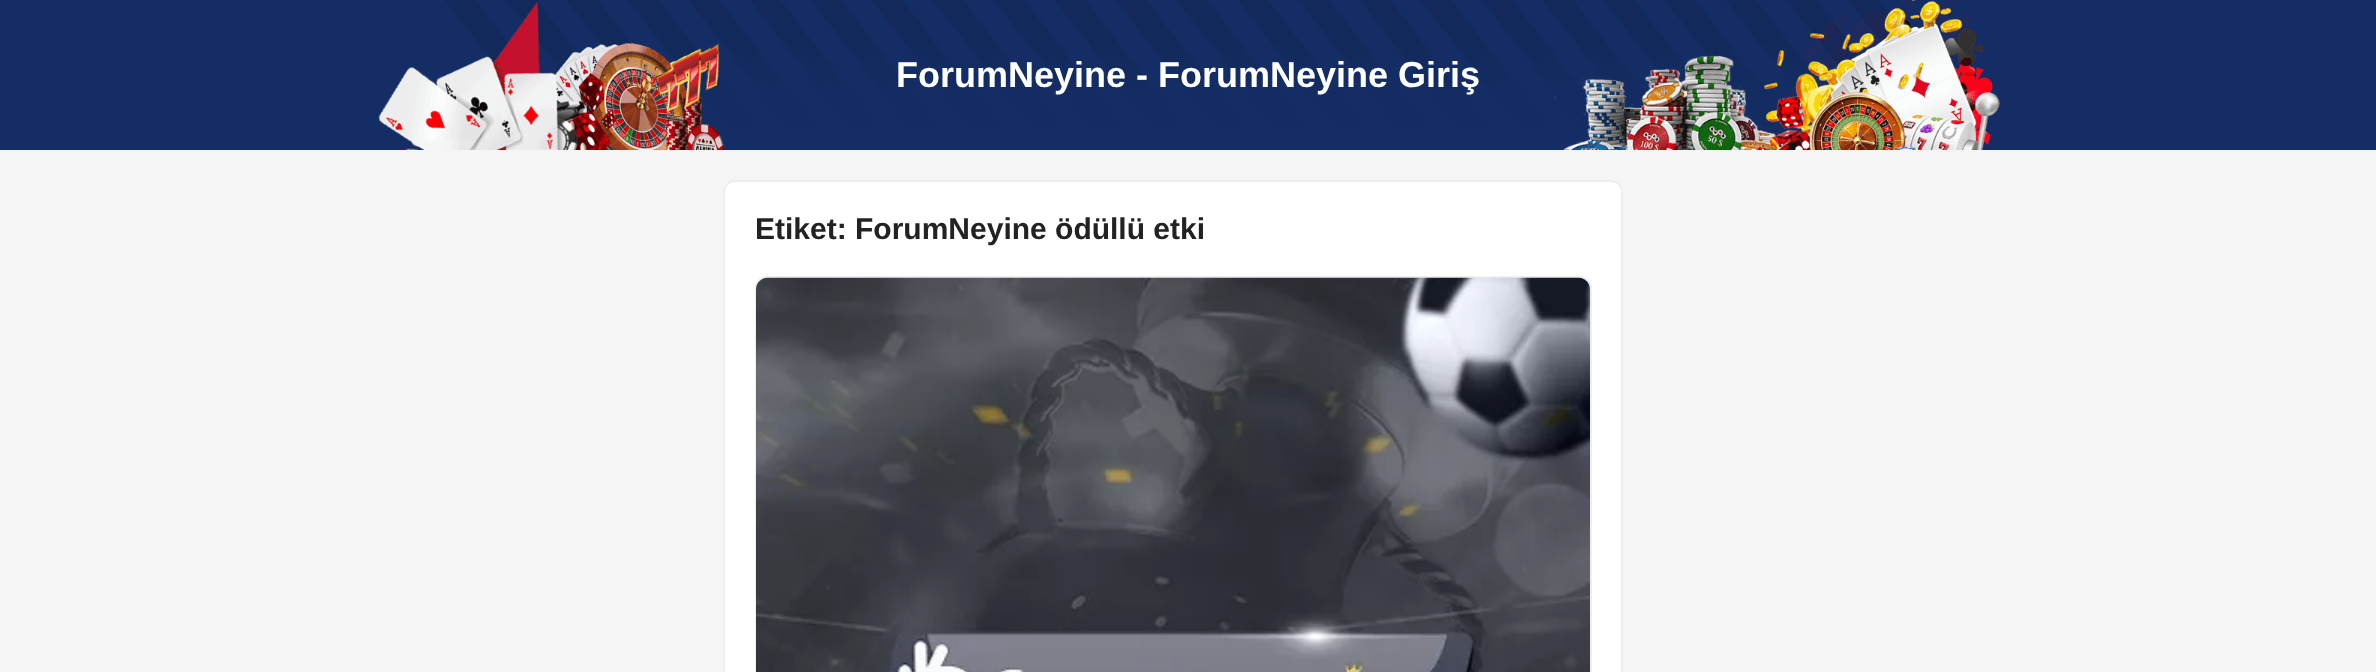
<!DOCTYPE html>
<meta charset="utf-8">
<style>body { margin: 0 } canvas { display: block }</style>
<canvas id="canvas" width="2376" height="672"></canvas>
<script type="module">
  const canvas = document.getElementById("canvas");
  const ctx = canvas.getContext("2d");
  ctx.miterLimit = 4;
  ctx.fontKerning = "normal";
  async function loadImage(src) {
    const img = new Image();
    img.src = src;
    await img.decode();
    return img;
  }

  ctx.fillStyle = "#f5f5f5";
  ctx.fillRect(0, 0, 2376, 672);
  ctx.fillStyle = "#142e65";
  ctx.fillRect(0, 0, 2376, 150);
  ctx.drawImage(await loadImage("img1.png"), 378, 0, 1622, 150);
  ctx.font = "bold 36px Liberation Sans";
  ctx.fillStyle = "#ffffff";
  ctx.fillText("ForumNeyine - ForumNeyine Giriş", 896, 87);
  ctx.beginPath();
  ctx.roundRect(724, 181, 898, 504, 11);
  ctx.fill();
  ctx.strokeStyle = "#eeeeee";
  ctx.lineWidth = 2;
  ctx.stroke();
  ctx.font = "bold 30px Liberation Sans";
  ctx.fillStyle = "#222222";
  ctx.fillText("Etiket: ForumNeyine ödüllü etki", 755, 239);
  ctx.beginPath();
  ctx.roundRect(756, 277, 835, 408, 11);
  ctx.stroke();
  ctx.drawImage(await loadImage("img2.png"), 756, 277, 834, 395);
</script>
